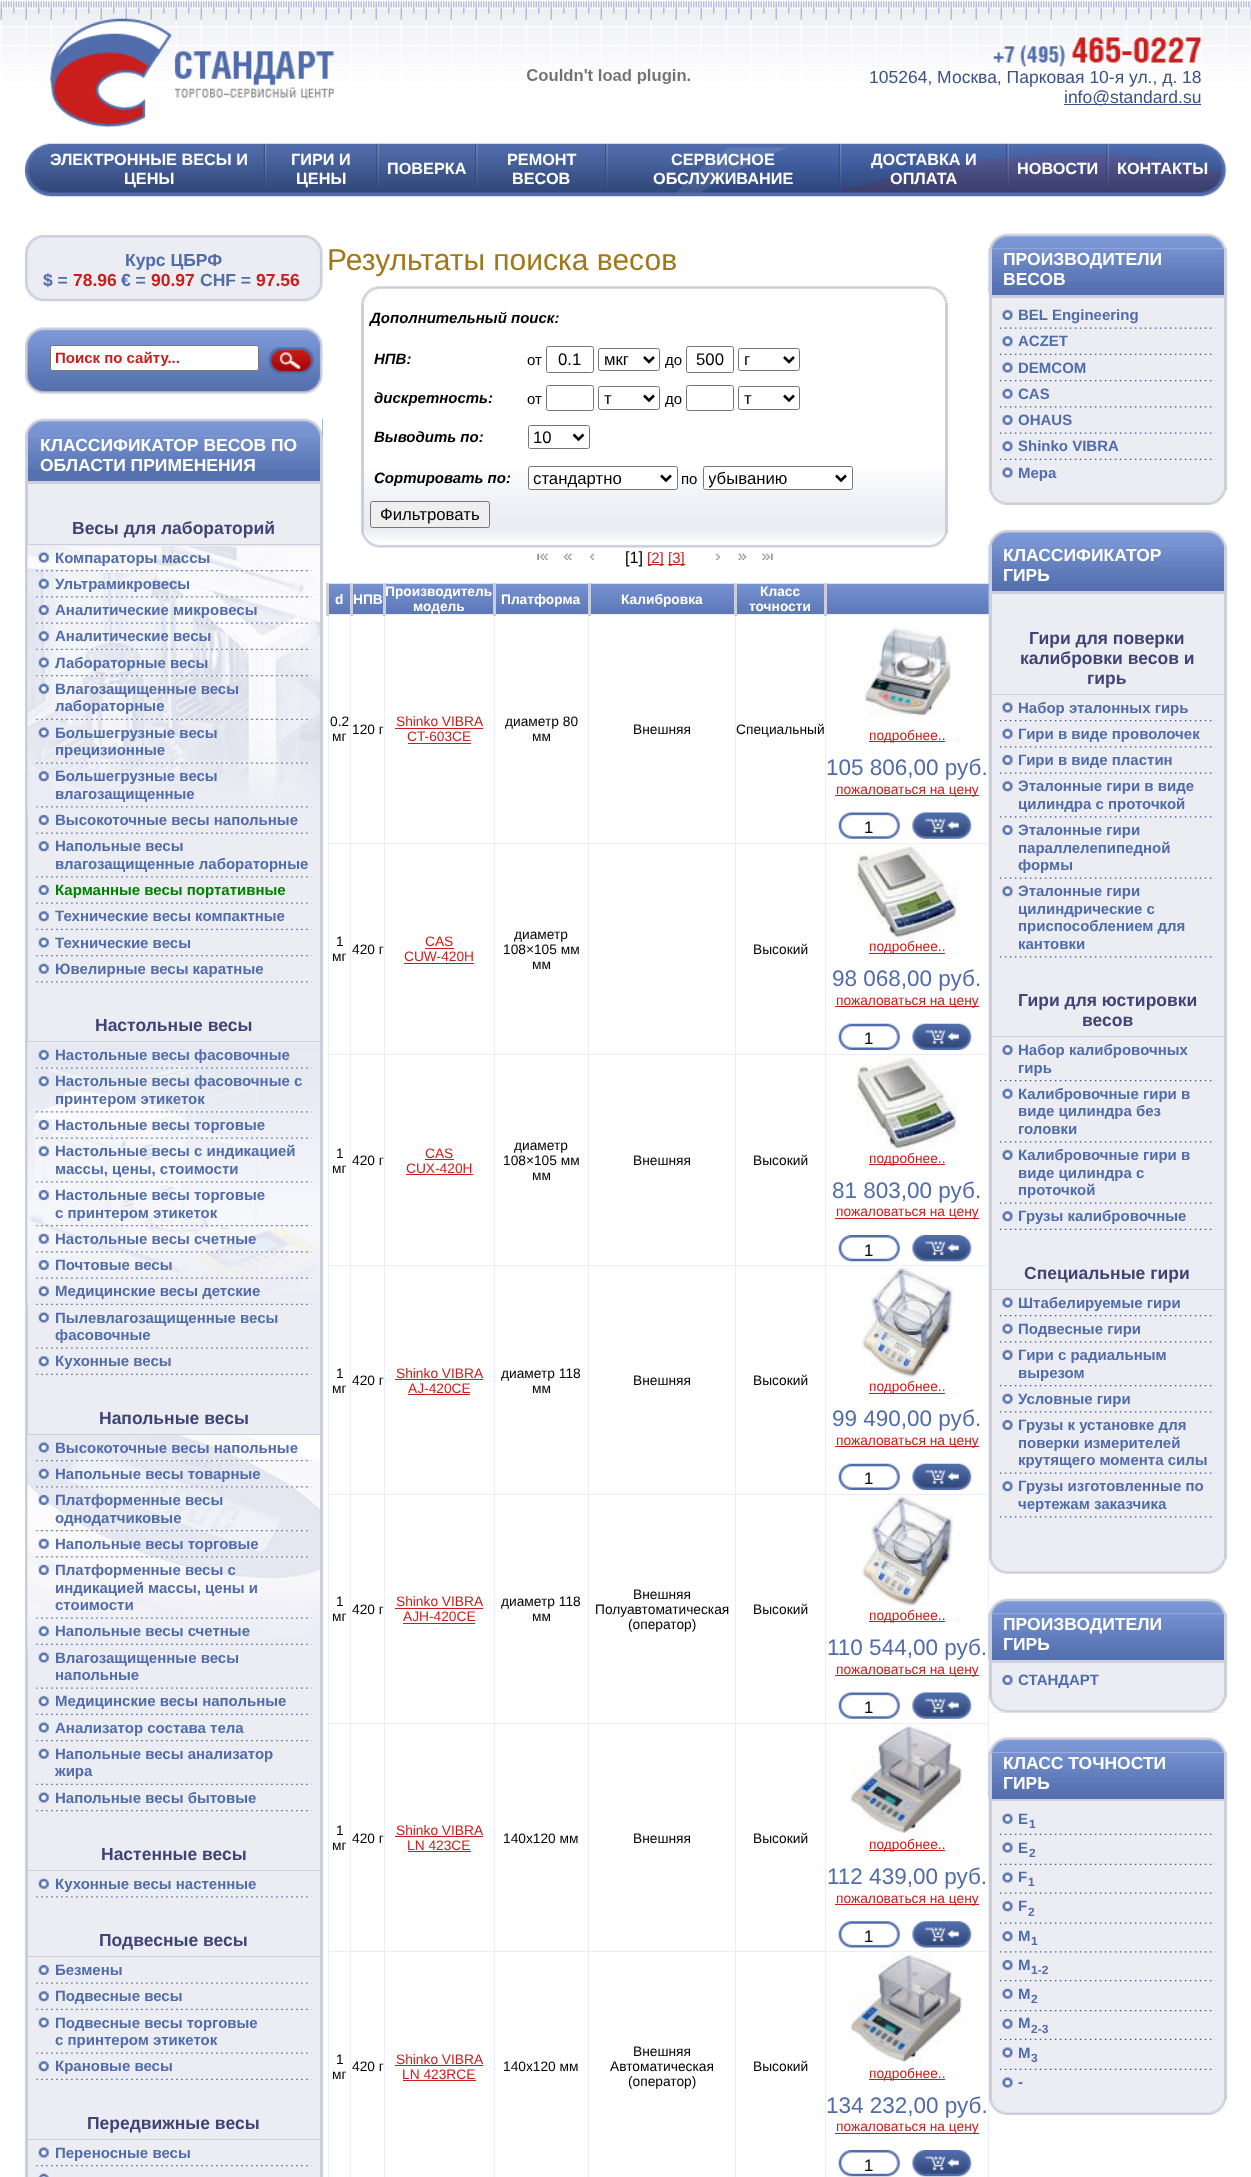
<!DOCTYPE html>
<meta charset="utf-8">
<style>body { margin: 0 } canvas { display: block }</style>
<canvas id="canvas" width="1251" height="2177"></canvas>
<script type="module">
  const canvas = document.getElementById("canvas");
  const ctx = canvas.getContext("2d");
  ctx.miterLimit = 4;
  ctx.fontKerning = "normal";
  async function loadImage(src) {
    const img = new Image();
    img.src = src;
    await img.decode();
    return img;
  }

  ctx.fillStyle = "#ffffff";
  ctx.fillRect(0, 0, 1251, 2177);
  ctx.drawImage(await loadImage("img1.png"), 0, 1, 1251, 166);
  ctx.drawImage(await loadImage("img2.png"), 50, 18, 284, 110);
  ctx.drawImage(await loadImage("img3.png"), 527, 69, 163, 15);
  ctx.drawImage(await loadImage("img4.png"), 993, 37, 209, 30);
  ctx.font = "17.5px Liberation Sans";
  ctx.fillStyle = "#3a5287";
  ctx.fillText("105264, Москва, Парковая 10-я ул., д. 18", 869, 83);
  ctx.fillRect(1064, 104, 137, 1);
  ctx.fillText("info@standard.su", 1064, 103);
  ctx.drawImage(await loadImage("img5.png"), 25, 143, 1202, 54);
  ctx.font = "bold 16.25px Liberation Sans";
  ctx.fillStyle = "#ffffff";
  ctx.fillText("ЭЛЕКТРОННЫЕ ВЕСЫ И", 50, 165);
  ctx.fillText("ЦЕНЫ", 124, 184);
  ctx.drawImage(await loadImage("img6.png"), 263, 143, 4, 48);
  ctx.fillText("ГИРИ И", 291, 165);
  ctx.fillText("ЦЕНЫ", 296, 184);
  ctx.drawImage(await loadImage("img7.png"), 376, 143, 3, 46);
  ctx.fillText("ПОВЕРКА", 387, 174);
  ctx.drawImage(await loadImage("img8.png"), 475, 143, 3, 46);
  ctx.fillText("РЕМОНТ", 507, 165);
  ctx.fillText("ВЕСОВ", 512, 184);
  ctx.drawImage(await loadImage("img8.png"), 605, 143, 3, 46);
  ctx.fillText("СЕРВИСНОЕ", 671, 165);
  ctx.fillText("ОБСЛУЖИВАНИЕ", 653, 184);
  ctx.drawImage(await loadImage("img9.png"), 838, 143, 4, 48);
  ctx.fillText("ДОСТАВКА И", 871, 165);
  ctx.fillText("ОПЛАТА", 890, 184);
  ctx.drawImage(await loadImage("img10.png"), 1006, 143, 3, 46);
  ctx.fillText("НОВОСТИ", 1017, 174);
  ctx.drawImage(await loadImage("img11.png"), 1106, 143, 3, 46);
  ctx.fillText("КОНТАКТЫ", 1117, 174);
  ctx.drawImage(await loadImage("img12.png"), 25, 235, 298, 67);
  ctx.font = "bold 17.5px Liberation Sans";
  ctx.fillStyle = "#506caa";
  ctx.fillText("Курс ЦБРФ", 125, 266);
  ctx.fillText("$ =", 43, 286);
  ctx.fillStyle = "#c91e1b";
  ctx.fillText("78.96", 73, 286);
  ctx.fillStyle = "#506caa";
  ctx.fillText("€ =", 121, 286);
  ctx.fillStyle = "#c91e1b";
  ctx.fillText("90.97", 151, 286);
  ctx.fillStyle = "#506caa";
  ctx.fillText("CHF =", 200, 286);
  ctx.fillStyle = "#c91e1b";
  ctx.fillText("97.56", 256, 286);
  ctx.drawImage(await loadImage("img13.png"), 25, 327, 298, 67);
  ctx.fillStyle = "#ffffff";
  ctx.beginPath();
  ctx.roundRect(50.5, 345.5, 208, 25, 2);
  ctx.fill();
  ctx.strokeStyle = "#767676";
  ctx.stroke();
  ctx.font = "bold 15px Liberation Sans";
  ctx.fillStyle = "#c91e1b";
  ctx.fillText("Поиск по сайту...", 55, 363);
  ctx.drawImage(await loadImage("img14.png"), 268, 347, 46, 27);
  ctx.fillStyle = "#5571af";
  ctx.fillRect(322, 419, 1, 16);
  ctx.drawImage(await loadImage("img15.png"), 25, 418, 298, 17);
  ctx.fillRect(28, 469, 292, 12);
  ctx.drawImage(await loadImage("img16.png"), 28, 435, 292, 34);
  ctx.fillStyle = "#cccedb";
  ctx.fillRect(320, 435, 3, 1742);
  ctx.fillRect(25, 481, 298, 3);
  ctx.fillRect(25, 435, 3, 1742);
  ctx.font = "bold 17.5px Liberation Sans";
  ctx.fillStyle = "#ffffff";
  ctx.fillText("КЛАССИФИКАТОР ВЕСОВ ПО", 40, 451);
  ctx.fillText("ОБЛАСТИ ПРИМЕНЕНИЯ", 40, 471);
  ctx.fillStyle = "#ebedf3";
  ctx.fillRect(28, 484, 292, 1693);
  ctx.fillStyle = "#3f4475";
  ctx.fillText("Весы для лабораторий", 72, 534);
  ctx.drawImage(await loadImage("img17.png"), 27, 545, 293, 268);
  ctx.fillStyle = "#cccedb";
  ctx.fillRect(28, 544, 292, 1);
  ctx.drawImage(await loadImage("img18.png"), 38, 552, 11, 11);
  ctx.font = "bold 15px Liberation Sans";
  ctx.fillStyle = "#506caa";
  ctx.fillText("Компараторы массы", 55, 563);
  ctx.drawImage(await loadImage("img19.png"), 36, 570, 276, 2);
  ctx.drawImage(await loadImage("img20.png"), 38, 578, 11, 11);
  ctx.fillText("Ультрамикровесы", 55, 589);
  ctx.drawImage(await loadImage("img21.png"), 36, 596, 276, 2);
  ctx.drawImage(await loadImage("img22.png"), 38, 605, 11, 10);
  ctx.fillText("Аналитические микровесы", 55, 615);
  ctx.drawImage(await loadImage("img23.png"), 36, 622, 276, 2);
  ctx.drawImage(await loadImage("img24.png"), 38, 631, 11, 11);
  ctx.fillText("Аналитические весы", 55, 641);
  ctx.drawImage(await loadImage("img25.png"), 36, 648, 276, 2);
  ctx.drawImage(await loadImage("img26.png"), 38, 657, 11, 11);
  ctx.fillText("Лабораторные весы", 55, 668);
  ctx.drawImage(await loadImage("img27.png"), 36, 675, 276, 2);
  ctx.drawImage(await loadImage("img28.png"), 38, 683, 11, 11);
  ctx.fillText("Влагозащищенные весы", 55, 694);
  ctx.fillText("лабораторные", 55, 711);
  ctx.drawImage(await loadImage("img29.png"), 36, 718, 276, 2);
  ctx.drawImage(await loadImage("img30.png"), 38, 727, 11, 11);
  ctx.fillText("Большегрузные весы", 55, 738);
  ctx.fillText("прецизионные", 55, 755);
  ctx.drawImage(await loadImage("img31.png"), 36, 762, 276, 2);
  ctx.drawImage(await loadImage("img32.png"), 38, 771, 11, 11);
  ctx.fillText("Большегрузные весы", 55, 781);
  ctx.fillText("влагозащищенные", 55, 799);
  ctx.drawImage(await loadImage("img33.png"), 36, 806, 276, 2);
  ctx.drawImage(await loadImage("img34.png"), 38, 815, 11, 10);
  ctx.fillText("Высокоточные весы напольные", 55, 825);
  ctx.drawImage(await loadImage("img35.png"), 36, 832, 276, 2);
  ctx.drawImage(await loadImage("img36.png"), 38, 841, 11, 11);
  ctx.fillText("Напольные весы", 55, 851);
  ctx.fillText("влагозащищенные лабораторные", 55, 869);
  ctx.drawImage(await loadImage("img37.png"), 36, 876, 276, 2);
  ctx.drawImage(await loadImage("img34.png"), 38, 885, 11, 10);
  ctx.fillStyle = "#008000";
  ctx.fillText("Карманные весы портативные", 55, 895);
  ctx.drawImage(await loadImage("img35.png"), 36, 902, 276, 2);
  ctx.drawImage(await loadImage("img36.png"), 38, 911, 11, 11);
  ctx.fillStyle = "#506caa";
  ctx.fillText("Технические весы компактные", 55, 921);
  ctx.drawImage(await loadImage("img38.png"), 36, 928, 276, 2);
  ctx.drawImage(await loadImage("img39.png"), 38, 937, 11, 11);
  ctx.fillText("Технические весы", 55, 948);
  ctx.drawImage(await loadImage("img40.png"), 36, 955, 276, 2);
  ctx.drawImage(await loadImage("img41.png"), 38, 963, 11, 11);
  ctx.fillText("Ювелирные весы каратные", 55, 974);
  ctx.drawImage(await loadImage("img37.png"), 36, 981, 276, 2);
  ctx.font = "bold 17.5px Liberation Sans";
  ctx.fillStyle = "#3f4475";
  ctx.fillText("Настольные весы", 95, 1031);
  ctx.drawImage(await loadImage("img42.png"), 27, 1042, 293, 263);
  ctx.fillStyle = "#cccedb";
  ctx.fillRect(28, 1041, 292, 1);
  ctx.drawImage(await loadImage("img43.png"), 38, 1050, 11, 10);
  ctx.font = "bold 15px Liberation Sans";
  ctx.fillStyle = "#506caa";
  ctx.fillText("Настольные весы фасовочные", 55, 1060);
  ctx.drawImage(await loadImage("img44.png"), 36, 1067, 276, 2);
  ctx.drawImage(await loadImage("img45.png"), 38, 1076, 11, 11);
  ctx.fillText("Настольные весы фасовочные с", 55, 1086);
  ctx.fillText("принтером этикеток", 55, 1104);
  ctx.drawImage(await loadImage("img46.png"), 36, 1111, 276, 2);
  ctx.drawImage(await loadImage("img47.png"), 38, 1120, 11, 10);
  ctx.fillText("Настольные весы торговые", 55, 1130);
  ctx.drawImage(await loadImage("img48.png"), 36, 1137, 276, 2);
  ctx.drawImage(await loadImage("img49.png"), 38, 1146, 11, 11);
  ctx.fillText("Настольные весы с индикацией", 55, 1156);
  ctx.fillText("массы, цены, стоимости", 55, 1174);
  ctx.drawImage(await loadImage("img50.png"), 36, 1181, 276, 2);
  ctx.drawImage(await loadImage("img51.png"), 38, 1190, 11, 10);
  ctx.fillText("Настольные весы торговые", 55, 1200);
  ctx.fillText("с принтером этикеток", 55, 1218);
  ctx.drawImage(await loadImage("img52.png"), 36, 1225, 276, 2);
  ctx.drawImage(await loadImage("img53.png"), 38, 1233, 11, 11);
  ctx.fillText("Настольные весы счетные", 55, 1244);
  ctx.drawImage(await loadImage("img54.png"), 36, 1251, 276, 2);
  ctx.drawImage(await loadImage("img55.png"), 38, 1260, 11, 10);
  ctx.fillText("Почтовые весы", 55, 1270);
  ctx.drawImage(await loadImage("img56.png"), 36, 1277, 276, 2);
  ctx.drawImage(await loadImage("img57.png"), 38, 1286, 11, 11);
  ctx.fillText("Медицинские весы детские", 55, 1296);
  ctx.drawImage(await loadImage("img58.png"), 36, 1303, 276, 2);
  ctx.drawImage(await loadImage("img39.png"), 38, 1312, 11, 11);
  ctx.fillText("Пылевлагозащищенные весы", 55, 1323);
  ctx.fillText("фасовочные", 55, 1340);
  ctx.drawImage(await loadImage("img35.png"), 36, 1347, 276, 2);
  ctx.drawImage(await loadImage("img36.png"), 38, 1356, 11, 11);
  ctx.fillText("Кухонные весы", 55, 1366);
  ctx.drawImage(await loadImage("img38.png"), 36, 1373, 276, 2);
  ctx.font = "bold 17.5px Liberation Sans";
  ctx.fillStyle = "#3f4475";
  ctx.fillText("Напольные весы", 99, 1424);
  ctx.drawImage(await loadImage("img59.png"), 27, 1435, 293, 215);
  ctx.fillStyle = "#cccedb";
  ctx.fillRect(28, 1434, 292, 1);
  ctx.drawImage(await loadImage("img60.png"), 38, 1442, 11, 11);
  ctx.font = "bold 15px Liberation Sans";
  ctx.fillStyle = "#506caa";
  ctx.fillText("Высокоточные весы напольные", 55, 1453);
  ctx.drawImage(await loadImage("img61.png"), 36, 1460, 276, 2);
  ctx.drawImage(await loadImage("img62.png"), 38, 1468, 11, 11);
  ctx.fillText("Напольные весы товарные", 55, 1479);
  ctx.drawImage(await loadImage("img63.png"), 36, 1486, 276, 2);
  ctx.drawImage(await loadImage("img64.png"), 38, 1495, 11, 10);
  ctx.fillText("Платформенные весы", 55, 1505);
  ctx.fillText("однодатчиковые", 55, 1523);
  ctx.drawImage(await loadImage("img65.png"), 36, 1530, 276, 2);
  ctx.drawImage(await loadImage("img66.png"), 38, 1538, 11, 11);
  ctx.fillText("Напольные весы торговые", 55, 1549);
  ctx.drawImage(await loadImage("img67.png"), 36, 1556, 276, 2);
  ctx.drawImage(await loadImage("img68.png"), 38, 1565, 11, 10);
  ctx.fillText("Платформенные весы с", 55, 1575);
  ctx.fillText("индикацией массы, цены и", 55, 1593);
  ctx.fillText("стоимости", 55, 1610);
  ctx.drawImage(await loadImage("img69.png"), 36, 1617, 276, 2);
  ctx.drawImage(await loadImage("img70.png"), 38, 1626, 11, 11);
  ctx.fillText("Напольные весы счетные", 55, 1636);
  ctx.drawImage(await loadImage("img71.png"), 36, 1643, 276, 2);
  ctx.drawImage(await loadImage("img39.png"), 38, 1652, 11, 11);
  ctx.fillText("Влагозащищенные весы", 55, 1663);
  ctx.fillText("напольные", 55, 1680);
  ctx.drawImage(await loadImage("img35.png"), 36, 1687, 276, 2);
  ctx.drawImage(await loadImage("img36.png"), 38, 1696, 11, 11);
  ctx.fillText("Медицинские весы напольные", 55, 1706);
  ctx.drawImage(await loadImage("img38.png"), 36, 1713, 276, 2);
  ctx.drawImage(await loadImage("img39.png"), 38, 1722, 11, 11);
  ctx.fillText("Анализатор состава тела", 55, 1733);
  ctx.drawImage(await loadImage("img40.png"), 36, 1740, 276, 2);
  ctx.drawImage(await loadImage("img41.png"), 38, 1748, 11, 11);
  ctx.fillText("Напольные весы анализатор", 55, 1759);
  ctx.fillText("жира", 55, 1776);
  ctx.drawImage(await loadImage("img38.png"), 36, 1783, 276, 2);
  ctx.drawImage(await loadImage("img39.png"), 38, 1792, 11, 11);
  ctx.fillText("Напольные весы бытовые", 55, 1803);
  ctx.drawImage(await loadImage("img40.png"), 36, 1810, 276, 2);
  ctx.font = "bold 17.5px Liberation Sans";
  ctx.fillStyle = "#3f4475";
  ctx.fillText("Настенные весы", 101, 1860);
  ctx.fillStyle = "#cccedb";
  ctx.fillRect(28, 1870, 292, 1);
  ctx.drawImage(await loadImage("img41.png"), 38, 1878, 11, 11);
  ctx.font = "bold 15px Liberation Sans";
  ctx.fillStyle = "#506caa";
  ctx.fillText("Кухонные весы настенные", 55, 1889);
  ctx.drawImage(await loadImage("img37.png"), 36, 1896, 276, 2);
  ctx.font = "bold 17.5px Liberation Sans";
  ctx.fillStyle = "#3f4475";
  ctx.fillText("Подвесные весы", 99, 1946);
  ctx.fillStyle = "#cccedb";
  ctx.fillRect(28, 1956, 292, 1);
  ctx.drawImage(await loadImage("img34.png"), 38, 1965, 11, 10);
  ctx.font = "bold 15px Liberation Sans";
  ctx.fillStyle = "#506caa";
  ctx.fillText("Безмены", 55, 1975);
  ctx.drawImage(await loadImage("img35.png"), 36, 1982, 276, 2);
  ctx.drawImage(await loadImage("img36.png"), 38, 1991, 11, 11);
  ctx.fillText("Подвесные весы", 55, 2001);
  ctx.drawImage(await loadImage("img38.png"), 36, 2008, 276, 2);
  ctx.drawImage(await loadImage("img39.png"), 38, 2017, 11, 11);
  ctx.fillText("Подвесные весы торговые", 55, 2028);
  ctx.fillText("с принтером этикеток", 55, 2045);
  ctx.drawImage(await loadImage("img35.png"), 36, 2052, 276, 2);
  ctx.drawImage(await loadImage("img36.png"), 38, 2061, 11, 11);
  ctx.fillText("Крановые весы", 55, 2071);
  ctx.drawImage(await loadImage("img38.png"), 36, 2078, 276, 2);
  ctx.font = "bold 17.5px Liberation Sans";
  ctx.fillStyle = "#3f4475";
  ctx.fillText("Передвижные весы", 87, 2129);
  ctx.fillStyle = "#cccedb";
  ctx.fillRect(28, 2139, 292, 1);
  ctx.drawImage(await loadImage("img39.png"), 38, 2147, 11, 11);
  ctx.font = "bold 15px Liberation Sans";
  ctx.fillStyle = "#506caa";
  ctx.fillText("Переносные весы", 55, 2158);
  ctx.drawImage(await loadImage("img40.png"), 36, 2165, 276, 2);
  ctx.drawImage(await loadImage("img72.png"), 38, 2173, 11, 4);
  ctx.font = "30px Liberation Sans";
  ctx.fillStyle = "#a07818";
  ctx.fillText("Результаты поиска весов", 327, 270);
  ctx.drawImage(await loadImage("img73.png"), 361, 286, 587, 17);
  ctx.drawImage(await loadImage("img74.png"), 364, 471, 581, 63);
  ctx.fillStyle = "#cccedb";
  ctx.fillRect(945, 303, 3, 231);
  ctx.fillRect(361, 303, 3, 231);
  ctx.font = "italic bold 15px Liberation Sans";
  ctx.fillStyle = "#000000";
  ctx.fillText("Дополнительный поиск:", 370, 323);
  ctx.fillText("НПВ:", 374, 364);
  ctx.font = "15px Liberation Sans";
  ctx.fillText("от", 527, 365);
  ctx.beginPath();
  ctx.roundRect(546.5, 346.5, 47, 26, 2);
  ctx.stroke();
  ctx.font = "16.75px Liberation Sans";
  ctx.fillText("0.1", 558, 365);
  ctx.beginPath();
  ctx.roundRect(598.5, 348.5, 61, 22, 2);
  ctx.stroke();
  ctx.beginPath();
  ctx.moveTo(644, 357);
  ctx.lineTo(649, 362);
  ctx.lineTo(654, 357);
  ctx.strokeStyle = "#000000";
  ctx.lineWidth = 2.5;
  ctx.stroke();
  ctx.fillText("мкг", 604, 365);
  ctx.font = "15px Liberation Sans";
  ctx.fillText("до", 665, 365);
  ctx.beginPath();
  ctx.roundRect(686.5, 346.5, 47, 26, 2);
  ctx.strokeStyle = "#767676";
  ctx.lineWidth = 1;
  ctx.stroke();
  ctx.font = "16.75px Liberation Sans";
  ctx.fillText("500", 696, 365);
  ctx.beginPath();
  ctx.roundRect(738.5, 348.5, 61, 22, 2);
  ctx.stroke();
  ctx.beginPath();
  ctx.moveTo(784, 357);
  ctx.lineTo(789, 362);
  ctx.lineTo(794, 357);
  ctx.strokeStyle = "#000000";
  ctx.lineWidth = 2.5;
  ctx.stroke();
  ctx.fillText("г", 744, 365);
  ctx.font = "italic bold 15px Liberation Sans";
  ctx.fillText("дискретность:", 374, 403);
  ctx.font = "15px Liberation Sans";
  ctx.fillText("от", 527, 404);
  ctx.beginPath();
  ctx.roundRect(546.5, 385.5, 47, 25, 2);
  ctx.strokeStyle = "#767676";
  ctx.lineWidth = 1;
  ctx.stroke();
  ctx.beginPath();
  ctx.roundRect(598.5, 386.5, 61, 23, 2);
  ctx.stroke();
  ctx.beginPath();
  ctx.moveTo(644, 395.5);
  ctx.lineTo(649, 400.5);
  ctx.lineTo(654, 395.5);
  ctx.strokeStyle = "#000000";
  ctx.lineWidth = 2.5;
  ctx.stroke();
  ctx.font = "16.75px Liberation Sans";
  ctx.fillText("т", 604, 404);
  ctx.font = "15px Liberation Sans";
  ctx.fillText("до", 665, 404);
  ctx.beginPath();
  ctx.roundRect(686.5, 385.5, 47, 25, 2);
  ctx.strokeStyle = "#767676";
  ctx.lineWidth = 1;
  ctx.stroke();
  ctx.beginPath();
  ctx.roundRect(738.5, 386.5, 61, 23, 2);
  ctx.stroke();
  ctx.beginPath();
  ctx.moveTo(784, 395.5);
  ctx.lineTo(789, 400.5);
  ctx.lineTo(794, 395.5);
  ctx.strokeStyle = "#000000";
  ctx.lineWidth = 2.5;
  ctx.stroke();
  ctx.font = "16.75px Liberation Sans";
  ctx.fillText("т", 744, 404);
  ctx.font = "italic bold 15px Liberation Sans";
  ctx.fillText("Выводить по:", 374, 442);
  ctx.beginPath();
  ctx.roundRect(528.5, 425.5, 61, 23, 2);
  ctx.strokeStyle = "#767676";
  ctx.lineWidth = 1;
  ctx.stroke();
  ctx.beginPath();
  ctx.moveTo(573.5, 434.5);
  ctx.lineTo(578.5, 439.5);
  ctx.lineTo(583.5, 434.5);
  ctx.strokeStyle = "#000000";
  ctx.lineWidth = 2.5;
  ctx.stroke();
  ctx.font = "16.75px Liberation Sans";
  ctx.fillText("10", 533, 443);
  ctx.font = "italic bold 15px Liberation Sans";
  ctx.fillText("Сортировать по:", 374, 483);
  ctx.fillStyle = "#ffffff";
  ctx.beginPath();
  ctx.roundRect(528.5, 466.5, 149, 23, 2);
  ctx.fill();
  ctx.strokeStyle = "#767676";
  ctx.lineWidth = 1;
  ctx.stroke();
  ctx.beginPath();
  ctx.moveTo(661, 475.5);
  ctx.lineTo(666, 480.5);
  ctx.lineTo(671, 475.5);
  ctx.strokeStyle = "#000000";
  ctx.lineWidth = 2.5;
  ctx.stroke();
  ctx.font = "16.75px Liberation Sans";
  ctx.fillStyle = "#000000";
  ctx.fillText("стандартно", 533, 484);
  ctx.font = "15px Liberation Sans";
  ctx.fillText("по", 681, 484);
  ctx.fillStyle = "#ffffff";
  ctx.beginPath();
  ctx.roundRect(703.5, 466.5, 149, 23, 2);
  ctx.fill();
  ctx.strokeStyle = "#767676";
  ctx.lineWidth = 1;
  ctx.stroke();
  ctx.beginPath();
  ctx.moveTo(836, 475.5);
  ctx.lineTo(841, 480.5);
  ctx.lineTo(846, 475.5);
  ctx.strokeStyle = "#000000";
  ctx.lineWidth = 2.5;
  ctx.stroke();
  ctx.save();
  ctx.beginPath();
  ctx.rect(709, 468, 122, 21);
  ctx.clip();
  ctx.font = "16.75px Liberation Sans";
  ctx.fillStyle = "#000000";
  ctx.fillText("убыванию", 708, 484);
  ctx.restore();
  ctx.fillStyle = "#efefef";
  ctx.beginPath();
  ctx.roundRect(370.5, 501.5, 119, 26, 2);
  ctx.fill();
  ctx.strokeStyle = "#767676";
  ctx.lineWidth = 1;
  ctx.stroke();
  ctx.font = "16.75px Liberation Sans";
  ctx.fillStyle = "#000000";
  ctx.fillText("Фильтровать", 380, 520);
  ctx.drawImage(await loadImage("img75.png"), 361, 533, 587, 15);
  ctx.drawImage(await loadImage("img76.png"), 537, 553, 11, 7);
  ctx.drawImage(await loadImage("img77.png"), 563, 553, 9, 7);
  ctx.drawImage(await loadImage("img78.png"), 589, 553, 5, 7);
  ctx.font = "16.25px Liberation Sans";
  ctx.fillText("[1]", 625, 563);
  ctx.fillStyle = "#c91e1b";
  ctx.fillRect(648, 564, 16, 1);
  ctx.font = "15px Liberation Sans";
  ctx.fillText("[2]", 647, 563);
  ctx.fillRect(668, 564, 17, 1);
  ctx.fillText("[3]", 668, 563);
  ctx.drawImage(await loadImage("img79.png"), 716, 553, 5, 7);
  ctx.drawImage(await loadImage("img80.png"), 738, 553, 9, 7);
  ctx.drawImage(await loadImage("img81.png"), 762, 553, 11, 7);
  ctx.drawImage(await loadImage("img82.png"), 329, 583, 21, 31);
  ctx.fillStyle = "#ebedf3";
  ctx.fillRect(825, 614, 164, 1);
  ctx.fillRect(825, 843, 164, 1);
  ctx.fillRect(825, 1054, 164, 1);
  ctx.fillRect(825, 1265, 164, 1);
  ctx.fillRect(825, 1494, 164, 1);
  ctx.fillRect(825, 1723, 164, 1);
  ctx.fillRect(825, 1951, 164, 1);
  ctx.fillRect(825, 1951, 1, 226);
  ctx.fillRect(735, 1951, 91, 1);
  ctx.fillRect(825, 1723, 1, 230);
  ctx.fillRect(735, 1723, 91, 1);
  ctx.fillRect(825, 1494, 1, 230);
  ctx.fillRect(735, 1494, 91, 1);
  ctx.fillRect(825, 1265, 1, 230);
  ctx.fillRect(735, 1265, 91, 1);
  ctx.fillRect(825, 1054, 1, 212);
  ctx.fillRect(735, 1054, 91, 1);
  ctx.fillRect(825, 843, 1, 212);
  ctx.fillRect(735, 843, 91, 1);
  ctx.fillRect(825, 614, 1, 230);
  ctx.fillRect(735, 614, 91, 1);
  ctx.fillRect(735, 1951, 1, 226);
  ctx.fillRect(588, 1951, 148, 1);
  ctx.fillRect(735, 1723, 1, 230);
  ctx.fillRect(588, 1723, 148, 1);
  ctx.fillRect(735, 1494, 1, 230);
  ctx.fillRect(588, 1494, 148, 1);
  ctx.fillRect(735, 1265, 1, 230);
  ctx.fillRect(588, 1265, 148, 1);
  ctx.fillRect(735, 1054, 1, 212);
  ctx.fillRect(588, 1054, 148, 1);
  ctx.fillRect(735, 843, 1, 212);
  ctx.fillRect(588, 843, 148, 1);
  ctx.fillRect(735, 614, 1, 230);
  ctx.fillRect(588, 614, 148, 1);
  ctx.fillRect(588, 1951, 1, 226);
  ctx.fillRect(494, 1951, 95, 1);
  ctx.fillRect(588, 1723, 1, 230);
  ctx.fillRect(494, 1723, 95, 1);
  ctx.fillRect(588, 1494, 1, 230);
  ctx.fillRect(494, 1494, 95, 1);
  ctx.fillRect(588, 1265, 1, 230);
  ctx.fillRect(494, 1265, 95, 1);
  ctx.fillRect(588, 1054, 1, 212);
  ctx.fillRect(494, 1054, 95, 1);
  ctx.fillRect(588, 843, 1, 212);
  ctx.fillRect(494, 843, 95, 1);
  ctx.fillRect(588, 614, 1, 230);
  ctx.fillRect(494, 614, 95, 1);
  ctx.fillRect(494, 1951, 1, 226);
  ctx.fillRect(384, 1951, 111, 1);
  ctx.fillRect(494, 1723, 1, 230);
  ctx.fillRect(384, 1723, 111, 1);
  ctx.fillRect(494, 1494, 1, 230);
  ctx.fillRect(384, 1494, 111, 1);
  ctx.fillRect(494, 1265, 1, 230);
  ctx.fillRect(384, 1265, 111, 1);
  ctx.fillRect(494, 1054, 1, 212);
  ctx.fillRect(384, 1054, 111, 1);
  ctx.fillRect(494, 843, 1, 212);
  ctx.fillRect(384, 843, 111, 1);
  ctx.fillRect(494, 614, 1, 230);
  ctx.fillRect(384, 614, 111, 1);
  ctx.fillRect(384, 1951, 1, 226);
  ctx.fillRect(350, 1951, 35, 1);
  ctx.fillRect(384, 1723, 1, 230);
  ctx.fillRect(350, 1723, 35, 1);
  ctx.fillRect(384, 1494, 1, 230);
  ctx.fillRect(350, 1494, 35, 1);
  ctx.fillRect(384, 1265, 1, 230);
  ctx.fillRect(350, 1265, 35, 1);
  ctx.fillRect(384, 1054, 1, 212);
  ctx.fillRect(350, 1054, 35, 1);
  ctx.fillRect(384, 843, 1, 212);
  ctx.fillRect(350, 843, 35, 1);
  ctx.fillRect(384, 614, 1, 230);
  ctx.fillRect(350, 614, 35, 1);
  ctx.fillRect(350, 1951, 1, 226);
  ctx.fillRect(328, 1951, 23, 1);
  ctx.fillRect(350, 1723, 1, 230);
  ctx.fillRect(328, 1723, 23, 1);
  ctx.fillRect(350, 1494, 1, 230);
  ctx.fillRect(328, 1494, 23, 1);
  ctx.fillRect(350, 1265, 1, 230);
  ctx.fillRect(328, 1265, 23, 1);
  ctx.fillRect(350, 1054, 1, 212);
  ctx.fillRect(328, 1054, 23, 1);
  ctx.fillRect(350, 843, 1, 212);
  ctx.fillRect(328, 843, 23, 1);
  ctx.fillRect(350, 614, 1, 230);
  ctx.fillRect(328, 614, 23, 1);
  ctx.fillRect(328, 1951, 1, 226);
  ctx.fillRect(328, 1723, 1, 230);
  ctx.fillRect(328, 1494, 1, 230);
  ctx.fillRect(328, 1265, 1, 230);
  ctx.fillRect(328, 1054, 1, 212);
  ctx.fillRect(328, 843, 1, 212);
  ctx.fillRect(328, 614, 1, 230);
  ctx.fillStyle = "#cccedb";
  ctx.fillRect(326, 583, 3, 33);
  ctx.font = "bold 13.75px Liberation Sans";
  ctx.fillStyle = "#ffffff";
  ctx.fillText("d", 335, 604);
  ctx.drawImage(await loadImage("img83.png"), 353, 583, 30, 31);
  ctx.fillStyle = "#cccedb";
  ctx.fillRect(350, 583, 3, 33);
  ctx.fillStyle = "#ffffff";
  ctx.fillText("НПВ", 353, 604);
  ctx.drawImage(await loadImage("img84.png"), 386, 583, 107, 31);
  ctx.fillStyle = "#cccedb";
  ctx.fillRect(383, 583, 3, 33);
  ctx.fillStyle = "#ffffff";
  ctx.fillText("Производитель", 385, 596);
  ctx.fillText("модель", 413, 611);
  ctx.drawImage(await loadImage("img85.png"), 496, 583, 92, 31);
  ctx.fillStyle = "#cccedb";
  ctx.fillRect(493, 583, 3, 33);
  ctx.fillStyle = "#ffffff";
  ctx.fillText("Платформа", 501, 604);
  ctx.drawImage(await loadImage("img86.png"), 591, 583, 143, 31);
  ctx.fillStyle = "#cccedb";
  ctx.fillRect(588, 583, 3, 33);
  ctx.fillStyle = "#ffffff";
  ctx.fillText("Калибровка", 621, 604);
  ctx.drawImage(await loadImage("img87.png"), 737, 583, 87, 31);
  ctx.fillStyle = "#cccedb";
  ctx.fillRect(734, 583, 3, 33);
  ctx.fillStyle = "#ffffff";
  ctx.fillText("Класс", 760, 596);
  ctx.fillText("точности", 749, 611);
  ctx.drawImage(await loadImage("img88.png"), 827, 583, 162, 31);
  ctx.fillStyle = "#cccedb";
  ctx.fillRect(824, 583, 3, 33);
  ctx.font = "13.75px Liberation Sans";
  ctx.fillStyle = "#000000";
  ctx.fillText("0.2", 330, 726);
  ctx.fillText("мг", 332, 741);
  ctx.fillText("120 г", 352, 734);
  ctx.fillStyle = "#c91e1b";
  ctx.fillText("Shinko VIBRA", 396, 726);
  ctx.fillRect(395, 728, 88, 1);
  ctx.fillText("CT-603CE", 407, 741);
  ctx.fillRect(408, 743, 63, 1);
  ctx.fillStyle = "#000000";
  ctx.fillText("диаметр 80", 505, 726);
  ctx.fillText("мм", 532, 741);
  ctx.fillText("Внешняя", 633, 734);
  ctx.fillText("Специальный", 736, 734);
  ctx.fillStyle = "#ebedf3";
  ctx.fillRect(988, 1951, 1, 226);
  ctx.fillRect(988, 1723, 1, 230);
  ctx.fillRect(988, 1494, 1, 230);
  ctx.fillRect(988, 1265, 1, 230);
  ctx.fillRect(988, 1054, 1, 212);
  ctx.fillRect(988, 843, 1, 212);
  ctx.fillRect(988, 614, 1, 230);
  ctx.drawImage(await loadImage("img89.png"), 864, 627, 87, 89);
  ctx.fillStyle = "#c91e1b";
  ctx.fillRect(869, 741, 76, 1);
  ctx.fillText("подробнее..", 869, 740);
  ctx.font = "22.5px Liberation Sans";
  ctx.fillStyle = "#506caa";
  ctx.fillText("105 806,00 руб.", 826, 775);
  ctx.fillStyle = "#c91e1b";
  ctx.fillRect(835, 795, 144, 1);
  ctx.font = "13.75px Liberation Sans";
  ctx.fillText("пожаловаться на цену", 836, 794);
  ctx.drawImage(await loadImage("img90.png"), 838, 812, 62, 27);
  ctx.font = "16.75px Liberation Sans";
  ctx.fillStyle = "#000000";
  ctx.fillText("1", 864, 833);
  ctx.drawImage(await loadImage("img91.png"), 912, 812, 60, 27);
  ctx.font = "13.75px Liberation Sans";
  ctx.fillText("1", 336, 946);
  ctx.fillText("мг", 332, 961);
  ctx.fillText("420 г", 352, 954);
  ctx.fillStyle = "#c91e1b";
  ctx.fillText("CAS", 425, 946);
  ctx.fillRect(425, 948, 29, 1);
  ctx.fillText("CUW-420H", 404, 961);
  ctx.fillRect(404, 963, 70, 1);
  ctx.fillStyle = "#000000";
  ctx.fillText("диаметр", 514, 939);
  ctx.fillText("108×105 мм", 503, 954);
  ctx.fillText("мм", 532, 969);
  ctx.fillText("Высокий", 753, 954);
  ctx.drawImage(await loadImage("img92.png"), 856, 843, 101, 96);
  ctx.fillStyle = "#c91e1b";
  ctx.fillRect(869, 953, 76, 1);
  ctx.fillText("подробнее..", 869, 951);
  ctx.font = "22.5px Liberation Sans";
  ctx.fillStyle = "#506caa";
  ctx.fillText("98 068,00 руб.", 832, 986);
  ctx.fillStyle = "#c91e1b";
  ctx.fillRect(835, 1006, 144, 1);
  ctx.font = "13.75px Liberation Sans";
  ctx.fillText("пожаловаться на цену", 836, 1005);
  ctx.drawImage(await loadImage("img93.png"), 838, 1023, 62, 27);
  ctx.font = "16.75px Liberation Sans";
  ctx.fillStyle = "#000000";
  ctx.fillText("1", 864, 1044);
  ctx.drawImage(await loadImage("img94.png"), 912, 1023, 60, 27);
  ctx.font = "13.75px Liberation Sans";
  ctx.fillText("1", 336, 1158);
  ctx.fillText("мг", 332, 1173);
  ctx.fillText("420 г", 352, 1165);
  ctx.fillStyle = "#c91e1b";
  ctx.fillText("CAS", 425, 1158);
  ctx.fillRect(425, 1159, 29, 1);
  ctx.fillText("CUX-420H", 406, 1173);
  ctx.fillRect(406, 1174, 67, 1);
  ctx.fillStyle = "#000000";
  ctx.fillText("диаметр", 514, 1150);
  ctx.fillText("108×105 мм", 503, 1165);
  ctx.fillText("мм", 532, 1180);
  ctx.fillText("Внешняя", 633, 1165);
  ctx.fillText("Высокий", 753, 1165);
  ctx.drawImage(await loadImage("img95.png"), 856, 1055, 101, 95);
  ctx.fillStyle = "#c91e1b";
  ctx.fillRect(869, 1164, 76, 1);
  ctx.fillText("подробнее..", 869, 1163);
  ctx.font = "22.5px Liberation Sans";
  ctx.fillStyle = "#506caa";
  ctx.fillText("81 803,00 руб.", 832, 1198);
  ctx.fillStyle = "#c91e1b";
  ctx.fillRect(835, 1218, 144, 1);
  ctx.font = "13.75px Liberation Sans";
  ctx.fillText("пожаловаться на цену", 836, 1216);
  ctx.drawImage(await loadImage("img96.png"), 838, 1235, 62, 27);
  ctx.font = "16.75px Liberation Sans";
  ctx.fillStyle = "#000000";
  ctx.fillText("1", 864, 1256);
  ctx.drawImage(await loadImage("img97.png"), 912, 1235, 60, 27);
  ctx.font = "13.75px Liberation Sans";
  ctx.fillText("1", 336, 1378);
  ctx.fillText("мг", 332, 1393);
  ctx.fillText("420 г", 352, 1385);
  ctx.fillStyle = "#c91e1b";
  ctx.fillText("Shinko VIBRA", 396, 1378);
  ctx.fillRect(395, 1379, 88, 1);
  ctx.fillText("AJ-420CE", 408, 1393);
  ctx.fillRect(408, 1394, 62, 1);
  ctx.fillStyle = "#000000";
  ctx.fillText("диаметр 118", 501, 1378);
  ctx.fillText("мм", 532, 1393);
  ctx.fillText("Внешняя", 633, 1385);
  ctx.fillText("Высокий", 753, 1385);
  ctx.drawImage(await loadImage("img98.png"), 862, 1266, 91, 112);
  ctx.fillStyle = "#c91e1b";
  ctx.fillRect(869, 1393, 76, 1);
  ctx.fillText("подробнее..", 869, 1391);
  ctx.font = "22.5px Liberation Sans";
  ctx.fillStyle = "#506caa";
  ctx.fillText("99 490,00 руб.", 832, 1426);
  ctx.fillStyle = "#c91e1b";
  ctx.fillRect(835, 1446, 144, 1);
  ctx.font = "13.75px Liberation Sans";
  ctx.fillText("пожаловаться на цену", 836, 1445);
  ctx.drawImage(await loadImage("img99.png"), 838, 1463, 62, 27);
  ctx.font = "16.75px Liberation Sans";
  ctx.fillStyle = "#000000";
  ctx.fillText("1", 864, 1484);
  ctx.drawImage(await loadImage("img100.png"), 912, 1463, 60, 27);
  ctx.font = "13.75px Liberation Sans";
  ctx.fillText("1", 336, 1606);
  ctx.fillText("мг", 332, 1621);
  ctx.fillText("420 г", 352, 1614);
  ctx.fillStyle = "#c91e1b";
  ctx.fillText("Shinko VIBRA", 396, 1606);
  ctx.fillRect(395, 1608, 88, 1);
  ctx.fillText("AJH-420CE", 403, 1621);
  ctx.fillRect(403, 1623, 72, 1);
  ctx.fillStyle = "#000000";
  ctx.fillText("диаметр 118", 501, 1606);
  ctx.fillText("мм", 532, 1621);
  ctx.fillText("Внешняя", 633, 1599);
  ctx.fillText("Полуавтоматическая", 595, 1614);
  ctx.fillText("(оператор)", 628, 1629);
  ctx.fillText("Высокий", 753, 1614);
  ctx.drawImage(await loadImage("img101.png"), 862, 1495, 91, 112);
  ctx.fillStyle = "#c91e1b";
  ctx.fillRect(869, 1621, 76, 1);
  ctx.fillText("подробнее..", 869, 1620);
  ctx.font = "22.5px Liberation Sans";
  ctx.fillStyle = "#506caa";
  ctx.fillText("110 544,00 руб.", 827, 1655);
  ctx.fillStyle = "#c91e1b";
  ctx.fillRect(835, 1675, 144, 1);
  ctx.font = "13.75px Liberation Sans";
  ctx.fillText("пожаловаться на цену", 836, 1674);
  ctx.drawImage(await loadImage("img90.png"), 838, 1692, 62, 27);
  ctx.font = "16.75px Liberation Sans";
  ctx.fillStyle = "#000000";
  ctx.fillText("1", 864, 1713);
  ctx.drawImage(await loadImage("img91.png"), 912, 1692, 60, 27);
  ctx.font = "13.75px Liberation Sans";
  ctx.fillText("1", 336, 1835);
  ctx.fillText("мг", 332, 1850);
  ctx.fillText("420 г", 352, 1843);
  ctx.fillStyle = "#c91e1b";
  ctx.fillText("Shinko VIBRA", 396, 1835);
  ctx.fillRect(395, 1836, 88, 1);
  ctx.fillText("LN 423CE", 407, 1850);
  ctx.fillRect(408, 1851, 63, 1);
  ctx.fillStyle = "#000000";
  ctx.fillText("140x120 мм", 503, 1843);
  ctx.fillText("Внешняя", 633, 1843);
  ctx.fillText("Высокий", 753, 1843);
  ctx.drawImage(await loadImage("img102.png"), 851, 1723, 112, 110);
  ctx.fillStyle = "#c91e1b";
  ctx.fillRect(869, 1850, 76, 1);
  ctx.fillText("подробнее..", 869, 1849);
  ctx.font = "22.5px Liberation Sans";
  ctx.fillStyle = "#506caa";
  ctx.fillText("112 439,00 руб.", 827, 1884);
  ctx.fillStyle = "#c91e1b";
  ctx.fillRect(835, 1904, 144, 1);
  ctx.font = "13.75px Liberation Sans";
  ctx.fillText("пожаловаться на цену", 836, 1903);
  ctx.drawImage(await loadImage("img103.png"), 838, 1921, 62, 27);
  ctx.font = "16.75px Liberation Sans";
  ctx.fillStyle = "#000000";
  ctx.fillText("1", 864, 1942);
  ctx.drawImage(await loadImage("img104.png"), 912, 1921, 60, 27);
  ctx.font = "13.75px Liberation Sans";
  ctx.fillText("1", 336, 2064);
  ctx.fillText("мг", 332, 2079);
  ctx.fillText("420 г", 352, 2071);
  ctx.fillStyle = "#c91e1b";
  ctx.fillText("Shinko VIBRA", 396, 2064);
  ctx.fillRect(395, 2065, 88, 1);
  ctx.fillText("LN 423RCE", 402, 2079);
  ctx.fillRect(403, 2080, 73, 1);
  ctx.fillStyle = "#000000";
  ctx.fillText("140x120 мм", 503, 2071);
  ctx.fillText("Внешняя", 633, 2056);
  ctx.fillText("Автоматическая", 610, 2071);
  ctx.fillText("(оператор)", 628, 2086);
  ctx.fillText("Высокий", 753, 2071);
  ctx.drawImage(await loadImage("img105.png"), 851, 1952, 111, 110);
  ctx.fillStyle = "#c91e1b";
  ctx.fillRect(869, 2079, 76, 1);
  ctx.fillText("подробнее..", 869, 2078);
  ctx.font = "22.5px Liberation Sans";
  ctx.fillStyle = "#506caa";
  ctx.fillText("134 232,00 руб.", 826, 2113);
  ctx.fillStyle = "#c91e1b";
  ctx.fillRect(835, 2133, 144, 1);
  ctx.font = "13.75px Liberation Sans";
  ctx.fillText("пожаловаться на цену", 836, 2131);
  ctx.drawImage(await loadImage("img96.png"), 838, 2150, 62, 27);
  ctx.font = "16.75px Liberation Sans";
  ctx.fillStyle = "#000000";
  ctx.fillText("1", 864, 2171);
  ctx.drawImage(await loadImage("img97.png"), 912, 2150, 60, 27);
  ctx.drawImage(await loadImage("img106.png"), 988, 233, 239, 16);
  ctx.fillStyle = "#5571af";
  ctx.fillRect(992, 293, 232, 2);
  ctx.drawImage(await loadImage("img107.png"), 988, 248, 239, 46);
  ctx.fillStyle = "#cccedb";
  ctx.fillRect(1224, 249, 3, 241);
  ctx.fillRect(989, 295, 237, 3);
  ctx.fillRect(989, 249, 3, 241);
  ctx.font = "bold 17.5px Liberation Sans";
  ctx.fillStyle = "#ffffff";
  ctx.fillText("ПРОИЗВОДИТЕЛИ", 1003, 265);
  ctx.fillText("ВЕСОВ", 1003, 285);
  ctx.fillStyle = "#ebedf3";
  ctx.fillRect(992, 298, 232, 192);
  ctx.drawImage(await loadImage("img108.png"), 1002, 310, 11, 10);
  ctx.font = "bold 15px Liberation Sans";
  ctx.fillStyle = "#506caa";
  ctx.fillText("BEL Engineering", 1018, 320);
  ctx.drawImage(await loadImage("img109.png"), 1000, 327, 215, 2);
  ctx.drawImage(await loadImage("img110.png"), 1002, 336, 11, 11);
  ctx.fillText("ACZET", 1018, 346);
  ctx.drawImage(await loadImage("img111.png"), 1000, 353, 215, 2);
  ctx.drawImage(await loadImage("img112.png"), 1002, 362, 11, 11);
  ctx.fillText("DEMCOM", 1018, 373);
  ctx.drawImage(await loadImage("img113.png"), 1000, 380, 215, 2);
  ctx.drawImage(await loadImage("img114.png"), 1002, 388, 11, 11);
  ctx.fillText("CAS", 1018, 399);
  ctx.drawImage(await loadImage("img115.png"), 1000, 406, 215, 2);
  ctx.drawImage(await loadImage("img108.png"), 1002, 415, 11, 10);
  ctx.fillText("OHAUS", 1018, 425);
  ctx.drawImage(await loadImage("img109.png"), 1000, 432, 215, 2);
  ctx.drawImage(await loadImage("img110.png"), 1002, 441, 11, 11);
  ctx.fillText("Shinko VIBRA", 1018, 451);
  ctx.drawImage(await loadImage("img111.png"), 1000, 458, 215, 2);
  ctx.drawImage(await loadImage("img112.png"), 1002, 467, 11, 11);
  ctx.fillText("Мера", 1018, 478);
  ctx.drawImage(await loadImage("img116.png"), 988, 490, 239, 15);
  ctx.drawImage(await loadImage("img117.png"), 988, 530, 239, 15);
  ctx.fillStyle = "#5571af";
  ctx.fillRect(992, 590, 232, 1);
  ctx.drawImage(await loadImage("img118.png"), 988, 545, 236, 45);
  ctx.fillStyle = "#cccedb";
  ctx.fillRect(1224, 545, 3, 1014);
  ctx.fillRect(989, 591, 237, 3);
  ctx.fillRect(989, 545, 3, 1014);
  ctx.font = "bold 17.5px Liberation Sans";
  ctx.fillStyle = "#ffffff";
  ctx.fillText("КЛАССИФИКАТОР", 1003, 561);
  ctx.fillText("ГИРЬ", 1003, 581);
  ctx.fillStyle = "#ebedf3";
  ctx.fillRect(992, 594, 232, 965);
  ctx.fillStyle = "#3f4475";
  ctx.fillText("Гири для поверки", 1029, 644);
  ctx.fillText("калибровки весов и", 1020, 664);
  ctx.fillText("гирь", 1087, 684);
  ctx.fillStyle = "#cccedb";
  ctx.fillRect(991, 694, 233, 1);
  ctx.drawImage(await loadImage("img112.png"), 1002, 702, 11, 11);
  ctx.font = "bold 15px Liberation Sans";
  ctx.fillStyle = "#506caa";
  ctx.fillText("Набор эталонных гирь", 1018, 713);
  ctx.drawImage(await loadImage("img113.png"), 1000, 720, 215, 2);
  ctx.drawImage(await loadImage("img114.png"), 1002, 728, 11, 11);
  ctx.fillText("Гири в виде проволочек", 1018, 739);
  ctx.drawImage(await loadImage("img115.png"), 1000, 746, 215, 2);
  ctx.drawImage(await loadImage("img108.png"), 1002, 755, 11, 10);
  ctx.fillText("Гири в виде пластин", 1018, 765);
  ctx.drawImage(await loadImage("img109.png"), 1000, 772, 215, 2);
  ctx.drawImage(await loadImage("img119.png"), 1002, 781, 11, 11);
  ctx.fillText("Эталонные гири в виде", 1018, 791);
  ctx.fillText("цилиндра с проточкой", 1018, 809);
  ctx.drawImage(await loadImage("img115.png"), 1000, 816, 215, 2);
  ctx.drawImage(await loadImage("img108.png"), 1002, 825, 11, 10);
  ctx.fillText("Эталонные гири", 1018, 835);
  ctx.fillText("параллелепипедной", 1018, 853);
  ctx.fillText("формы", 1018, 870);
  ctx.drawImage(await loadImage("img109.png"), 1000, 877, 215, 2);
  ctx.drawImage(await loadImage("img110.png"), 1002, 886, 11, 11);
  ctx.fillText("Эталонные гири", 1018, 896);
  ctx.fillText("цилиндрические с", 1018, 914);
  ctx.fillText("приспособлением для", 1018, 931);
  ctx.fillText("кантовки", 1018, 949);
  ctx.drawImage(await loadImage("img115.png"), 1000, 956, 215, 2);
  ctx.font = "bold 17.5px Liberation Sans";
  ctx.fillStyle = "#3f4475";
  ctx.fillText("Гири для юстировки", 1018, 1006);
  ctx.fillText("весов", 1082, 1026);
  ctx.fillStyle = "#cccedb";
  ctx.fillRect(991, 1036, 233, 1);
  ctx.drawImage(await loadImage("img108.png"), 1002, 1045, 11, 10);
  ctx.font = "bold 15px Liberation Sans";
  ctx.fillStyle = "#506caa";
  ctx.fillText("Набор калибровочных", 1018, 1055);
  ctx.fillText("гирь", 1018, 1073);
  ctx.drawImage(await loadImage("img113.png"), 1000, 1080, 215, 2);
  ctx.drawImage(await loadImage("img114.png"), 1002, 1088, 11, 11);
  ctx.fillText("Калибровочные гири в", 1018, 1099);
  ctx.fillText("виде цилиндра без", 1018, 1116);
  ctx.fillText("головки", 1018, 1134);
  ctx.drawImage(await loadImage("img115.png"), 1000, 1141, 215, 2);
  ctx.drawImage(await loadImage("img108.png"), 1002, 1150, 11, 10);
  ctx.fillText("Калибровочные гири в", 1018, 1160);
  ctx.fillText("виде цилиндра с", 1018, 1178);
  ctx.fillText("проточкой", 1018, 1195);
  ctx.drawImage(await loadImage("img109.png"), 1000, 1202, 215, 2);
  ctx.drawImage(await loadImage("img110.png"), 1002, 1211, 11, 11);
  ctx.fillText("Грузы калибровочные", 1018, 1221);
  ctx.drawImage(await loadImage("img111.png"), 1000, 1228, 215, 2);
  ctx.font = "bold 17.5px Liberation Sans";
  ctx.fillStyle = "#3f4475";
  ctx.fillText("Специальные гири", 1024, 1279);
  ctx.fillStyle = "#cccedb";
  ctx.fillRect(991, 1289, 233, 1);
  ctx.drawImage(await loadImage("img112.png"), 1002, 1297, 11, 11);
  ctx.font = "bold 15px Liberation Sans";
  ctx.fillStyle = "#506caa";
  ctx.fillText("Штабелируемые гири", 1018, 1308);
  ctx.drawImage(await loadImage("img113.png"), 1000, 1315, 215, 2);
  ctx.drawImage(await loadImage("img114.png"), 1002, 1323, 11, 11);
  ctx.fillText("Подвесные гири", 1018, 1334);
  ctx.drawImage(await loadImage("img115.png"), 1000, 1341, 215, 2);
  ctx.drawImage(await loadImage("img108.png"), 1002, 1350, 11, 10);
  ctx.fillText("Гири с радиальным", 1018, 1360);
  ctx.fillText("вырезом", 1018, 1378);
  ctx.drawImage(await loadImage("img113.png"), 1000, 1385, 215, 2);
  ctx.drawImage(await loadImage("img114.png"), 1002, 1393, 11, 11);
  ctx.fillText("Условные гири", 1018, 1404);
  ctx.drawImage(await loadImage("img115.png"), 1000, 1411, 215, 2);
  ctx.drawImage(await loadImage("img108.png"), 1002, 1420, 11, 10);
  ctx.fillText("Грузы к установке для", 1018, 1430);
  ctx.fillText("поверки измерителей", 1018, 1448);
  ctx.fillText("крутящего момента силы", 1018, 1465);
  ctx.drawImage(await loadImage("img109.png"), 1000, 1472, 215, 2);
  ctx.drawImage(await loadImage("img110.png"), 1002, 1481, 11, 11);
  ctx.fillText("Грузы изготовленные по", 1018, 1491);
  ctx.fillText("чертежам заказчика", 1018, 1509);
  ctx.drawImage(await loadImage("img115.png"), 1000, 1516, 215, 2);
  ctx.drawImage(await loadImage("img120.png"), 988, 1558, 239, 16);
  ctx.drawImage(await loadImage("img121.png"), 988, 1598, 239, 16);
  ctx.fillStyle = "#5571af";
  ctx.fillRect(992, 1658, 232, 2);
  ctx.drawImage(await loadImage("img122.png"), 988, 1613, 239, 46);
  ctx.fillStyle = "#cccedb";
  ctx.fillRect(1224, 1614, 3, 84);
  ctx.fillRect(989, 1660, 237, 3);
  ctx.fillRect(989, 1614, 3, 84);
  ctx.font = "bold 17.5px Liberation Sans";
  ctx.fillStyle = "#ffffff";
  ctx.fillText("ПРОИЗВОДИТЕЛИ", 1003, 1630);
  ctx.fillText("ГИРЬ", 1003, 1650);
  ctx.fillStyle = "#ebedf3";
  ctx.fillRect(992, 1663, 232, 35);
  ctx.drawImage(await loadImage("img108.png"), 1002, 1675, 11, 10);
  ctx.font = "bold 15px Liberation Sans";
  ctx.fillStyle = "#506caa";
  ctx.fillText("СТАНДАРТ", 1018, 1685);
  ctx.fillStyle = "#ebedf3";
  ctx.fillRect(989, 1712, 237, 1);
  ctx.drawImage(await loadImage("img123.png"), 988, 1697, 239, 16);
  ctx.drawImage(await loadImage("img124.png"), 988, 1737, 239, 16);
  ctx.fillStyle = "#5571af";
  ctx.fillRect(992, 1797, 232, 2);
  ctx.drawImage(await loadImage("img125.png"), 988, 1752, 239, 46);
  ctx.fillStyle = "#cccedb";
  ctx.fillRect(1224, 1753, 3, 347);
  ctx.fillRect(989, 1799, 237, 2);
  ctx.fillRect(989, 1753, 3, 347);
  ctx.font = "bold 17.5px Liberation Sans";
  ctx.fillStyle = "#ffffff";
  ctx.fillText("КЛАСС ТОЧНОСТИ", 1003, 1769);
  ctx.fillText("ГИРЬ", 1003, 1789);
  ctx.fillStyle = "#ebedf3";
  ctx.fillRect(992, 1801, 232, 299);
  ctx.drawImage(await loadImage("img114.png"), 1002, 1813, 11, 11);
  ctx.font = "bold 15px Liberation Sans";
  ctx.fillStyle = "#506caa";
  ctx.fillText("E", 1018, 1824);
  ctx.font = "bold 12px Liberation Sans";
  ctx.fillText("1", 1029, 1828);
  ctx.drawImage(await loadImage("img111.png"), 1000, 1833, 215, 2);
  ctx.drawImage(await loadImage("img112.png"), 1002, 1842, 11, 11);
  ctx.font = "bold 15px Liberation Sans";
  ctx.fillText("E", 1018, 1853);
  ctx.font = "bold 12px Liberation Sans";
  ctx.fillText("2", 1029, 1857);
  ctx.drawImage(await loadImage("img111.png"), 1000, 1863, 215, 2);
  ctx.drawImage(await loadImage("img112.png"), 1002, 1872, 11, 11);
  ctx.font = "bold 15px Liberation Sans";
  ctx.fillText("F", 1018, 1882);
  ctx.font = "bold 12px Liberation Sans";
  ctx.fillText("1", 1028, 1886);
  ctx.drawImage(await loadImage("img109.png"), 1000, 1892, 215, 2);
  ctx.drawImage(await loadImage("img110.png"), 1002, 1901, 11, 11);
  ctx.font = "bold 15px Liberation Sans";
  ctx.fillText("F", 1018, 1911);
  ctx.font = "bold 12px Liberation Sans";
  ctx.fillText("2", 1028, 1916);
  ctx.drawImage(await loadImage("img109.png"), 1000, 1922, 215, 2);
  ctx.drawImage(await loadImage("img110.png"), 1002, 1931, 11, 11);
  ctx.font = "bold 15px Liberation Sans";
  ctx.fillText("M", 1018, 1941);
  ctx.font = "bold 12px Liberation Sans";
  ctx.fillText("1", 1031, 1945);
  ctx.drawImage(await loadImage("img115.png"), 1000, 1951, 215, 2);
  ctx.drawImage(await loadImage("img108.png"), 1002, 1960, 11, 10);
  ctx.font = "bold 15px Liberation Sans";
  ctx.fillText("M", 1018, 1970);
  ctx.font = "bold 12px Liberation Sans";
  ctx.fillText("1-2", 1031, 1974);
  ctx.drawImage(await loadImage("img113.png"), 1000, 1980, 215, 2);
  ctx.drawImage(await loadImage("img114.png"), 1002, 1988, 11, 11);
  ctx.font = "bold 15px Liberation Sans";
  ctx.fillText("M", 1018, 1999);
  ctx.font = "bold 12px Liberation Sans";
  ctx.fillText("2", 1031, 2003);
  ctx.drawImage(await loadImage("img113.png"), 1000, 2010, 215, 2);
  ctx.drawImage(await loadImage("img114.png"), 1002, 2018, 11, 11);
  ctx.font = "bold 15px Liberation Sans";
  ctx.fillText("M", 1018, 2028);
  ctx.font = "bold 12px Liberation Sans";
  ctx.fillText("2-3", 1031, 2033);
  ctx.drawImage(await loadImage("img111.png"), 1000, 2038, 215, 2);
  ctx.drawImage(await loadImage("img126.png"), 1002, 2047, 11, 11);
  ctx.font = "bold 15px Liberation Sans";
  ctx.fillText("M", 1018, 2058);
  ctx.font = "bold 12px Liberation Sans";
  ctx.fillText("3", 1031, 2062);
  ctx.drawImage(await loadImage("img111.png"), 1000, 2068, 215, 2);
  ctx.drawImage(await loadImage("img112.png"), 1002, 2077, 11, 11);
  ctx.font = "bold 15px Liberation Sans";
  ctx.fillText("-", 1018, 2087);
  ctx.drawImage(await loadImage("img127.png"), 988, 2100, 239, 15);
</script>
